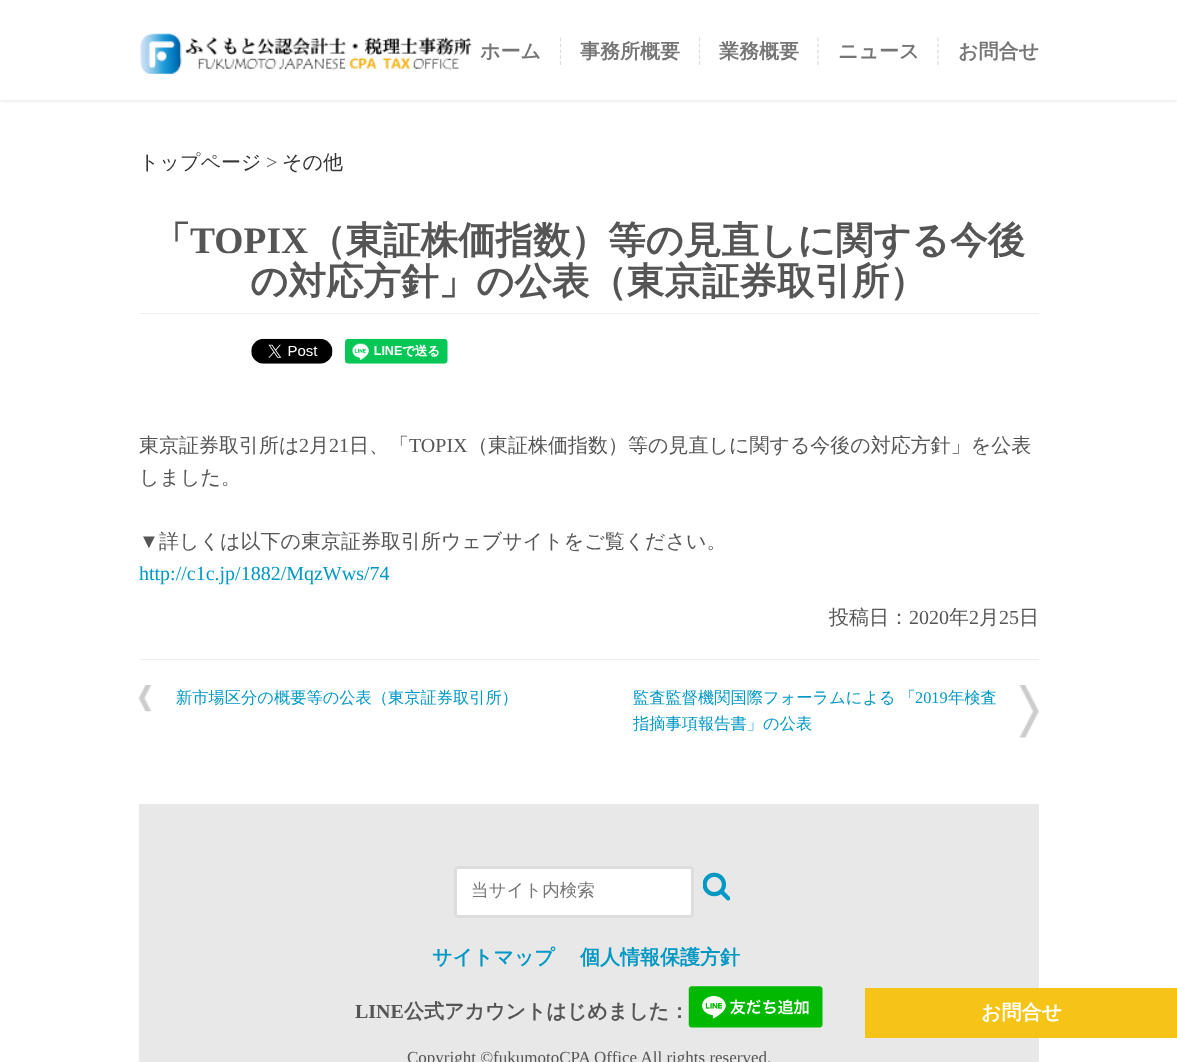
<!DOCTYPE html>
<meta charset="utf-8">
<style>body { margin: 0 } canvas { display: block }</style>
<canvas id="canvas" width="1177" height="1062"></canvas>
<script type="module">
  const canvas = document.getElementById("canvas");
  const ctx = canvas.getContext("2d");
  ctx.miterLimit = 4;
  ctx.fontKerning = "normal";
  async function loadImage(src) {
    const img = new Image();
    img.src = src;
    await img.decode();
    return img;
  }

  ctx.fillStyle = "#ffffff";
  ctx.fillRect(0, 0, 1177, 1062);
  ctx.save();
  ctx.beginPath();
  ctx.rect(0, 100, 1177, 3);
  ctx.clip();
  ctx.fillStyle = "rgba(41, 42, 43, 0.12)";
  ctx.filter = "blur(2px)";
  ctx.beginPath();
  ctx.rect(0, 1, 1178, 100);
  ctx.fill();
  ctx.filter = "none";
  ctx.restore();
  ctx.drawImage(await loadImage("img1.png"), 140, 33, 332, 41);
  ctx.beginPath();
  ctx.moveTo(560.5, 37.5);
  ctx.lineTo(560.5, 65);
  ctx.strokeStyle = "#dddddd";
  ctx.lineWidth = 1.2;
  ctx.setLineDash([3.75, 2.19]);
  ctx.stroke();
  ctx.font = "bold 20px WenQuanYi Zen Hei";
  ctx.fillStyle = "#757575";
  ctx.fillText("ホーム", 480, 58);
  ctx.beginPath();
  ctx.moveTo(699.5, 37.5);
  ctx.lineTo(699.5, 65);
  ctx.stroke();
  ctx.fillText("事務所概要", 580, 58);
  ctx.beginPath();
  ctx.moveTo(818, 37.5);
  ctx.lineTo(818, 65);
  ctx.stroke();
  ctx.fillText("業務概要", 719, 58);
  ctx.beginPath();
  ctx.moveTo(938, 37.5);
  ctx.lineTo(938, 65);
  ctx.stroke();
  ctx.fillText("ニュース", 838, 58);
  ctx.fillText("お問合せ", 958, 58);
  ctx.font = "500 20px WenQuanYi Zen Hei";
  ctx.fillStyle = "#333333";
  ctx.fillText("トップページ", 139, 169);
  ctx.font = "20px Liberation Serif";
  ctx.fillStyle = "#555555";
  ctx.fillText(">", 266, 169);
  ctx.font = "500 20px WenQuanYi Zen Hei";
  ctx.fillStyle = "#333333";
  ctx.fillText("その他", 282, 169);
  ctx.fillStyle = "#eeeeee";
  ctx.fillRect(139, 313, 900, 1);
  ctx.font = "bold 37.5px WenQuanYi Zen Hei";
  ctx.fillStyle = "#555555";
  ctx.fillText("「", 153, 253);
  ctx.font = "bold 37.5px Liberation Serif";
  ctx.fillText("TOPIX", 190, 253);
  ctx.font = "bold 37.5px WenQuanYi Zen Hei";
  ctx.fillText("（東証株価指数）等の見直しに関する今後", 308, 253);
  ctx.fillText("の対応方針」の公表（東京証券取引所）", 250, 294);
  ctx.drawImage(await loadImage("img2.png"), 251, 338, 82, 26);
  ctx.drawImage(await loadImage("img3.png"), 345, 338, 103, 26);
  ctx.font = "500 20px WenQuanYi Zen Hei";
  ctx.fillText("東京証券取引所は", 139, 452);
  ctx.font = "20px Liberation Serif";
  ctx.fillText("2", 299, 452);
  ctx.font = "500 20px WenQuanYi Zen Hei";
  ctx.fillText("月", 309, 452);
  ctx.font = "20px Liberation Serif";
  ctx.fillText("21", 329, 452);
  ctx.font = "500 20px WenQuanYi Zen Hei";
  ctx.fillText("日、「", 349, 452);
  ctx.font = "20px Liberation Serif";
  ctx.fillText("TOPIX", 409, 452);
  ctx.font = "500 20px WenQuanYi Zen Hei";
  ctx.fillText("（東証株価指数）等の見直しに関する今後の対応方針」を公表", 468, 452);
  ctx.fillText("しました。", 139, 484);
  ctx.font = "20px Liberation Serif";
  ctx.fillText("▼", 139, 548);
  ctx.font = "500 20px WenQuanYi Zen Hei";
  ctx.fillText("詳しくは以下の東京証券取引所ウェブサイトをご覧ください。", 159, 548);
  ctx.font = "20px Liberation Serif";
  ctx.fillStyle = "#0198c3";
  ctx.fillText("http://c1c.jp/1882/MqzWws/74", 139, 580);
  ctx.font = "500 20px WenQuanYi Zen Hei";
  ctx.fillStyle = "#555555";
  ctx.fillText("投稿日：", 829, 624);
  ctx.font = "20px Liberation Serif";
  ctx.fillText("2020", 909, 624);
  ctx.font = "500 20px WenQuanYi Zen Hei";
  ctx.fillText("年", 949, 624);
  ctx.font = "20px Liberation Serif";
  ctx.fillText("2", 969, 624);
  ctx.font = "500 20px WenQuanYi Zen Hei";
  ctx.fillText("月", 979, 624);
  ctx.font = "20px Liberation Serif";
  ctx.fillText("25", 999, 624);
  ctx.font = "500 20px WenQuanYi Zen Hei";
  ctx.fillText("日", 1019, 624);
  ctx.fillStyle = "#eeeeee";
  ctx.fillRect(139, 659, 900, 1);
  ctx.drawImage(await loadImage("img4.png"), 138, 685, 14, 27);
  ctx.font = "500 16.25px WenQuanYi Zen Hei";
  ctx.fillStyle = "#0198c3";
  ctx.fillText("新市場区分の概要等の公表（東京証券取引所）", 176, 703);
  ctx.drawImage(await loadImage("img5.png"), 1019, 685, 20, 53);
  ctx.wordSpacing = "-1px";
  ctx.fillText("監査監督機関国際フォーラムによる 「", 633, 703);
  ctx.wordSpacing = "0px";
  ctx.font = "16.25px Liberation Serif";
  ctx.fillText("2019", 915, 703);
  ctx.font = "500 16.25px WenQuanYi Zen Hei";
  ctx.fillText("年検査", 948, 703);
  ctx.fillText("指摘事項報告書」の公表", 633, 729);
  ctx.fillStyle = "#e8e8e8";
  ctx.fillRect(139, 804, 900, 258);
  ctx.fillStyle = "#ffffff";
  ctx.beginPath();
  ctx.roundRect(455.5, 867.5, 237, 49, 2.5);
  ctx.fill();
  ctx.lineWidth = 3;
  ctx.setLineDash([]);
  ctx.stroke();
  ctx.font = "500 17.5px WenQuanYi Zen Hei";
  ctx.fillStyle = "#757575";
  ctx.fillText("当サイト内検索", 471, 896);
  ctx.drawImage(await loadImage("img6.png"), 703, 872, 27, 29);
  ctx.font = "bold 20px WenQuanYi Zen Hei";
  ctx.fillStyle = "#0198c3";
  ctx.fillText("サイトマップ", 432, 964);
  ctx.fillText("個人情報保護方針", 580, 964);
  ctx.font = "bold 20px Liberation Serif";
  ctx.fillStyle = "#555555";
  ctx.fillText("LINE", 355, 1018);
  ctx.font = "bold 20px WenQuanYi Zen Hei";
  ctx.fillText("公式アカウントはじめました：", 404, 1018);
  ctx.drawImage(await loadImage("img7.png"), 688, 986, 135, 42);
  ctx.font = "17px Liberation Serif";
  ctx.fillText("Copyright ©fukumotoCPA Office All rights reserved.", 407, 1063);
  ctx.fillStyle = "#f5c416";
  ctx.fillRect(865, 988, 312, 50);
  ctx.font = "bold 20px WenQuanYi Zen Hei";
  ctx.fillStyle = "#ffffff";
  ctx.fillText("お問合せ", 981, 1019);
</script>
